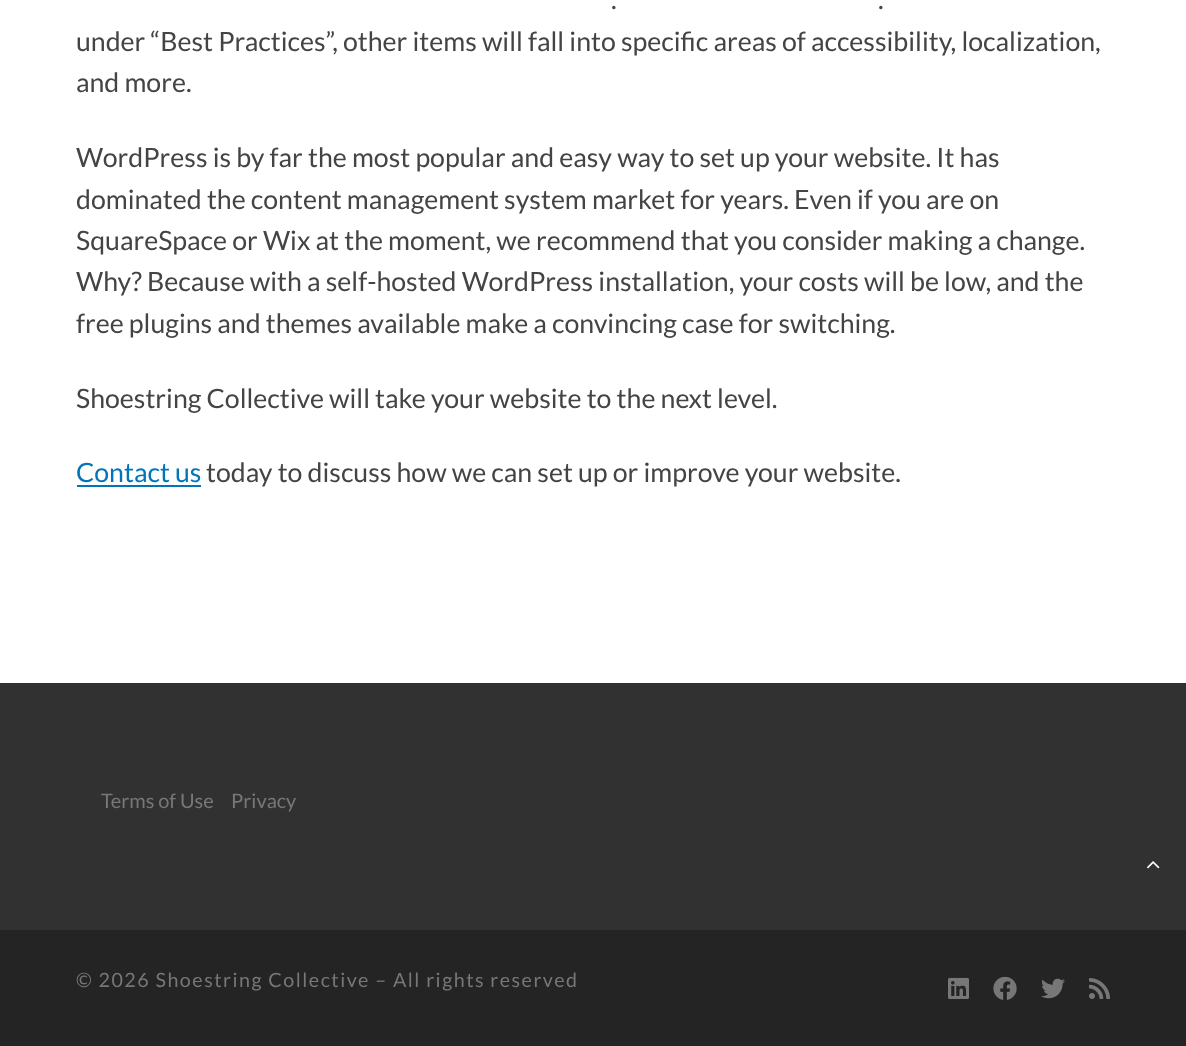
<!DOCTYPE html>
<meta charset="utf-8">
<style>body { margin: 0 } canvas { display: block }</style>
<canvas id="canvas" width="1186" height="1046"></canvas>
<script type="module">
  const canvas = document.getElementById("canvas");
  const ctx = canvas.getContext("2d");
  ctx.miterLimit = 4;
  ctx.fontKerning = "normal";
  async function loadImage(src) {
    const img = new Image();
    img.src = src;
    await img.decode();
    return img;
  }

  ctx.fillStyle = "#ffffff";
  ctx.fillRect(0, 0, 1186, 1046);
  ctx.font = "26.7px Lato";
  ctx.fillStyle = "#444444";
  ctx.fillText(".", 611, 9);
  ctx.fillText(".", 878, 9);
  ctx.fillText("under “Best Practices”, other items will fall into specific areas of accessibility, localization,", 76, 51);
  ctx.fillText("and more.", 76, 92);
  ctx.fillText("WordPress is by far the most popular and easy way to set up your website. It has", 76, 167);
  ctx.fillText("dominated the content management system market for years. Even if you are on", 76, 209);
  ctx.fillText("SquareSpace or Wix at the moment, we recommend that you consider making a change.", 76, 250);
  ctx.fillText("Why? Because with a self-hosted WordPress installation, your costs will be low, and the", 76, 291);
  ctx.fillText("free plugins and themes available make a convincing case for switching.", 76, 333);
  ctx.fillText("Shoestring Collective will take your website to the next level.", 76, 408);
  ctx.fillStyle = "#0075ba";
  ctx.fillText("Contact us", 76, 482);
  ctx.fillRect(77, 485, 124, 2);
  ctx.fillStyle = "#444444";
  ctx.fillText("today to discuss how we can set up or improve your website.", 206, 482);
  ctx.fillStyle = "#313131";
  ctx.fillRect(0, 683, 1186, 247);
  ctx.font = "20px Lato";
  ctx.fillStyle = "#777777";
  ctx.fillText("Terms of Use", 101, 808);
  ctx.fillText("Privacy", 231, 808);
  ctx.fillStyle = "#242424";
  ctx.fillRect(0, 930, 1186, 116);
  ctx.letterSpacing = "1.5px";
  ctx.font = "19.7px Lato";
  ctx.fillStyle = "#777777";
  ctx.fillText("© 2026 Shoestring Collective – All rights reserved", 76, 987);
  ctx.drawImage(await loadImage("img1.png"), 948, 977, 21, 22);
  ctx.drawImage(await loadImage("img2.png"), 993, 976, 24, 24);
  ctx.drawImage(await loadImage("img3.png"), 1041, 978, 24, 21);
  ctx.drawImage(await loadImage("img4.png"), 1089, 978, 21, 21);
  ctx.drawImage(await loadImage("img5.png"), 1147, 861, 13, 8);
</script>
